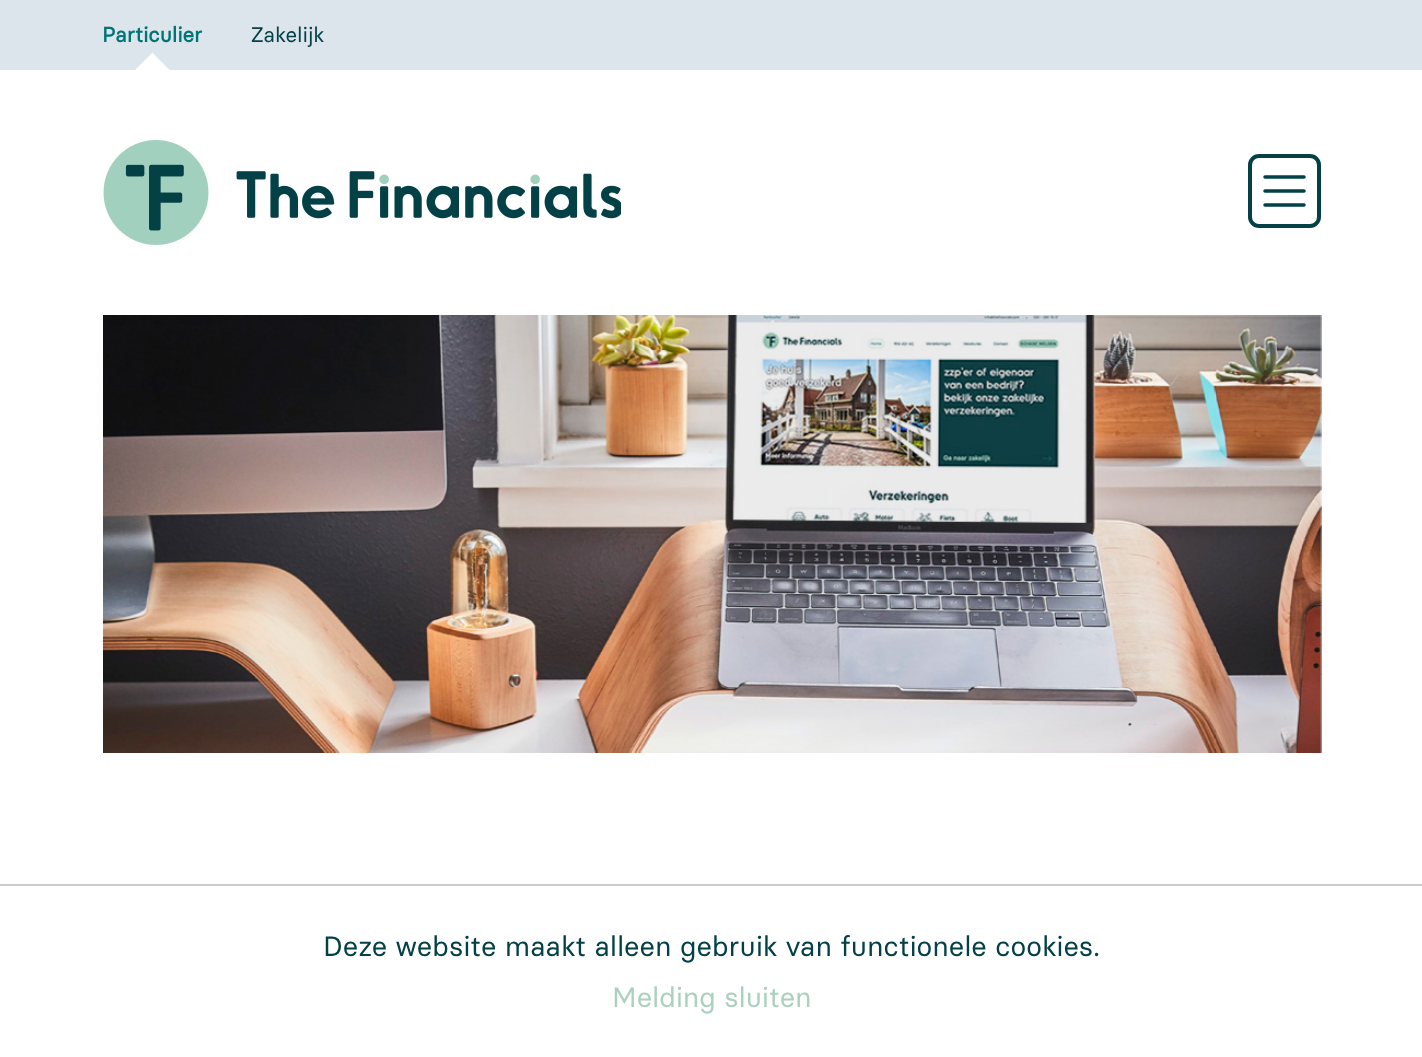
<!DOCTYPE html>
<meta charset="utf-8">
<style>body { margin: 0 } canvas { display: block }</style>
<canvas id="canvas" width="1422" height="1057"></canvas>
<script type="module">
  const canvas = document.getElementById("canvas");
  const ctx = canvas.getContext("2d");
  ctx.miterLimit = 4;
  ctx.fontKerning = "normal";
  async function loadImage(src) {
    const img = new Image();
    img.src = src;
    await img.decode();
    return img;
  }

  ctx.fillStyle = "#ffffff";
  ctx.fillRect(0, 0, 1422, 1057);
  ctx.fillStyle = "#dce4ec";
  ctx.fillRect(0, 0, 1422, 70);
  ctx.font = "bold 21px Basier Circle";
  ctx.fillStyle = "#007575";
  ctx.fillText("Particulier", 102, 42);
  ctx.font = "21px Basier Circle";
  ctx.fillStyle = "#034146";
  ctx.fillText("Zakelijk", 251, 42);
  ctx.drawImage(await loadImage("img1.png"), 135, 52, 35, 18);
  ctx.drawImage(await loadImage("img2.png"), 103, 140, 518, 105);
  ctx.beginPath();
  ctx.roundRect(1250, 156, 69, 70, 9);
  ctx.strokeStyle = "#034146";
  ctx.lineWidth = 4;
  ctx.stroke();
  ctx.beginPath();
  ctx.moveTo(1265, 177);
  ctx.lineTo(1304, 177);
  ctx.moveTo(1265, 191);
  ctx.lineTo(1304, 191);
  ctx.moveTo(1265, 205);
  ctx.lineTo(1304, 205);
  ctx.lineWidth = 3.5;
  ctx.lineCap = "round";
  ctx.stroke();
  ctx.drawImage(await loadImage("img3.png"), 103, 315, 1219, 438);
  ctx.fillStyle = "#cccccc";
  ctx.fillRect(0, 884, 1422, 2);
  ctx.font = "28px Basier Circle";
  ctx.fillStyle = "#034146";
  ctx.fillText("Deze website maakt alleen gebruik van functionele cookies.", 323, 956);
  ctx.fillStyle = "#abd0bf";
  ctx.fillText("Melding sluiten", 612, 1007);
</script>
